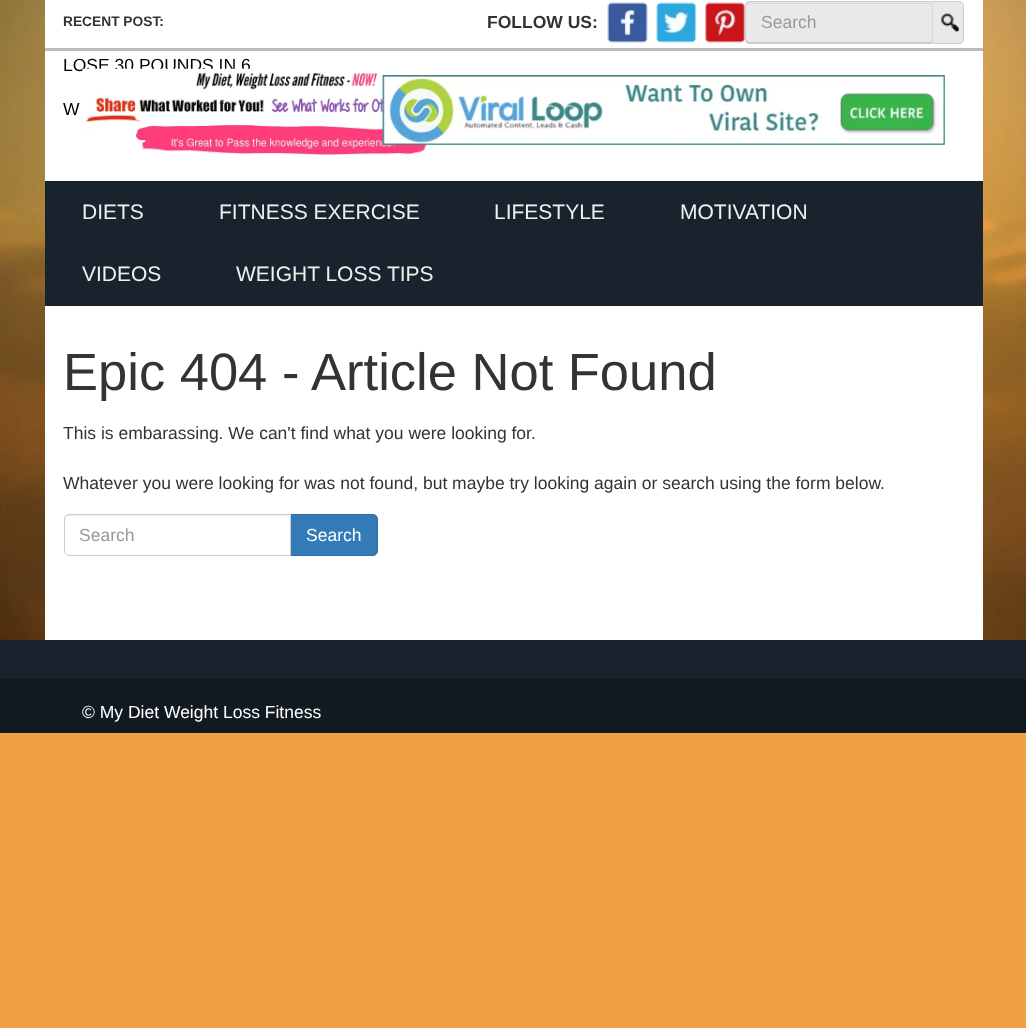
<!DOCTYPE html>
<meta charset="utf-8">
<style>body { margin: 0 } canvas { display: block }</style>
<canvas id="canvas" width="1026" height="1028"></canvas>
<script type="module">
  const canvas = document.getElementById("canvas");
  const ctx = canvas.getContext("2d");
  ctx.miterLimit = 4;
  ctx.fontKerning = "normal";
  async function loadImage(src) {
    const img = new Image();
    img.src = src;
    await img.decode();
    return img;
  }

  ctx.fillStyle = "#f0a243";
  ctx.fillRect(0, 0, 1026, 1028);
  ctx.drawImage(await loadImage("img1.png"), 0, 0, 1026, 640);
  ctx.fillStyle = "#ffffff";
  ctx.fillRect(45, 0, 938, 181);
  ctx.fillStyle = "#bbbbbb";
  ctx.fillRect(45, 48, 938, 3);
  ctx.font = "bold 13.75px Liberation Sans";
  ctx.fillStyle = "#333333";
  ctx.fillText("RECENT POST:", 63, 26);
  ctx.font = "17.5px Liberation Sans";
  ctx.fillStyle = "#000000";
  ctx.fillText("LOSE 30 POUNDS IN 6", 63, 71);
  ctx.fillText("W", 63, 115);
  ctx.font = "bold 17.5px Liberation Sans";
  ctx.fillStyle = "#333333";
  ctx.fillText("FOLLOW US:", 487, 28);
  ctx.drawImage(await loadImage("img2.png"), 607, 2, 41, 41);
  ctx.drawImage(await loadImage("img3.png"), 656, 2, 41, 41);
  ctx.drawImage(await loadImage("img4.png"), 705, 2, 40, 41);
  ctx.fillStyle = "#e9e9e9";
  ctx.beginPath();
  ctx.roundRect(931, 1, 33, 43, [0, 5, 5, 0]);
  ctx.fill();
  ctx.drawImage(await loadImage("img5.png"), 941, 13, 18, 19);
  ctx.beginPath();
  ctx.roundRect(931.5, 1.5, 32, 42, [0, 4.5, 4.5, 0]);
  ctx.strokeStyle = "#cccccc";
  ctx.stroke();
  ctx.beginPath();
  ctx.roundRect(745, 1, 188, 43, [5, 0, 0, 5]);
  ctx.fill();
  ctx.fillStyle = "#d8d8d8";
  ctx.beginPath();
  ctx.moveTo(750, 4);
  ctx.lineTo(932, 4);
  ctx.lineTo(932, 43);
  ctx.lineTo(933, 43);
  ctx.lineTo(933, 3);
  ctx.lineTo(749, 3);
  ctx.bezierCurveTo(747, 4, 746, 6, 746, 8);
  ctx.bezierCurveTo(746, 5, 748, 4, 750, 4);
  ctx.closePath();
  ctx.fill();
  ctx.fillStyle = "#cccccc";
  ctx.beginPath();
  ctx.moveTo(750, 1);
  ctx.lineTo(932, 1);
  ctx.lineTo(932, 44);
  ctx.lineTo(750, 44);
  ctx.bezierCurveTo(747, 44, 745, 42, 745, 39);
  ctx.lineTo(745, 6);
  ctx.bezierCurveTo(745, 3, 747, 1, 750, 1);
  ctx.closePath();
  ctx.moveTo(750, 2);
  ctx.lineTo(932, 2);
  ctx.lineTo(932, 42);
  ctx.lineTo(750, 42);
  ctx.bezierCurveTo(748, 42, 746, 41, 746, 39);
  ctx.lineTo(746, 6);
  ctx.bezierCurveTo(746, 4, 748, 2, 750, 2);
  ctx.closePath();
  ctx.fill("evenodd");
  ctx.font = "17.5px Liberation Sans";
  ctx.fillStyle = "#999999";
  ctx.fillText("Search", 761, 28);
  ctx.drawImage(await loadImage("img6.png"), 82, 68, 372, 87);
  ctx.drawImage(await loadImage("img7.png"), 382, 75, 563, 70);
  ctx.fillStyle = "#19232d";
  ctx.fillRect(45, 181, 938, 125);
  ctx.font = "21px Liberation Sans";
  ctx.fillStyle = "#efefef";
  ctx.fillText("DIETS", 82, 219);
  ctx.fillText("FITNESS EXERCISE", 219, 219);
  ctx.fillText("LIFESTYLE", 494, 219);
  ctx.fillText("MOTIVATION", 680, 219);
  ctx.fillText("VIDEOS", 82, 281);
  ctx.fillText("WEIGHT LOSS TIPS", 236, 281);
  ctx.fillStyle = "#ffffff";
  ctx.fillRect(45, 306, 938, 334);
  ctx.font = "52.5px Liberation Sans";
  ctx.fillStyle = "#333333";
  ctx.fillText("Epic 404 - Article Not Found", 63, 390);
  ctx.font = "17.5px Liberation Sans";
  ctx.fillText("This is embarassing. We can't find what you were looking for.", 63, 439);
  ctx.fillText("Whatever you were looking for was not found, but maybe try looking again or search using the form below.", 63, 489);
  ctx.fillStyle = "#337ab7";
  ctx.beginPath();
  ctx.roundRect(290.5, 514.5, 87, 41, [0, 4.5, 4.5, 0]);
  ctx.fill();
  ctx.strokeStyle = "#2e6da4";
  ctx.stroke();
  ctx.fillStyle = "#ffffff";
  ctx.beginPath();
  ctx.roundRect(64, 514, 227, 42, [5, 0, 0, 5]);
  ctx.fill();
  ctx.fillStyle = "#ececec";
  ctx.beginPath();
  ctx.moveTo(69, 516);
  ctx.lineTo(290, 516);
  ctx.lineTo(290, 515);
  ctx.lineTo(69, 515);
  ctx.bezierCurveTo(66, 515, 65, 517, 65, 520);
  ctx.bezierCurveTo(65, 518, 67, 516, 69, 516);
  ctx.closePath();
  ctx.fill();
  ctx.beginPath();
  ctx.roundRect(64.5, 514.5, 226, 41, [4.5, 0, 0, 4.5]);
  ctx.strokeStyle = "#cccccc";
  ctx.stroke();
  ctx.fillStyle = "#999999";
  ctx.fillText("Search", 79, 541);
  ctx.fillStyle = "#ffffff";
  ctx.fillText("Search", 306, 541);
  ctx.fillStyle = "#19232d";
  ctx.fillRect(0, 640, 1026, 39);
  ctx.fillStyle = "#121a21";
  ctx.fillRect(0, 679, 1026, 54);
  ctx.fillStyle = "#ffffff";
  ctx.fillText("© My Diet Weight Loss Fitness", 82, 718);
</script>
